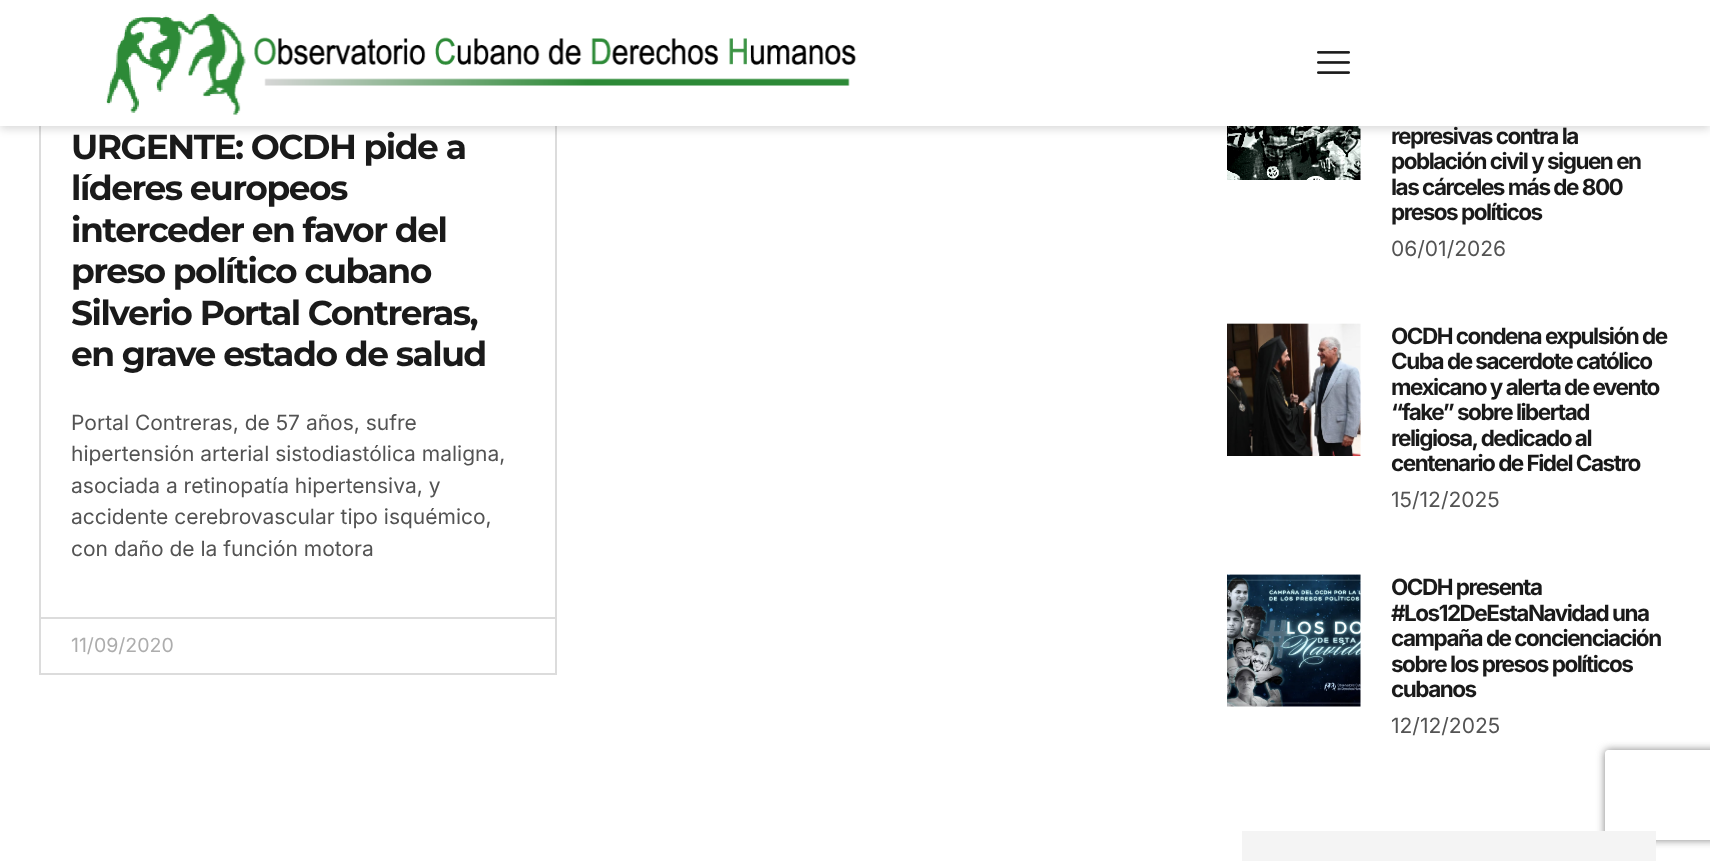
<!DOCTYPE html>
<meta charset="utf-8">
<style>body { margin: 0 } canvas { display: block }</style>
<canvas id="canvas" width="1710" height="861"></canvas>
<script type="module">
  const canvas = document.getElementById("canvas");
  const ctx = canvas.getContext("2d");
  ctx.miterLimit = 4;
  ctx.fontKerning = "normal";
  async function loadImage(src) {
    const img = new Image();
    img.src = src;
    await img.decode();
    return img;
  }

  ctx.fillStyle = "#ffffff";
  ctx.fillRect(0, 0, 1710, 861);
  ctx.strokeStyle = "#dcdcdc";
  ctx.lineWidth = 2;
  ctx.strokeRect(40, -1, 516, 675);
  ctx.drawImage(await loadImage("img3.png"), 1227, 126, 134, 54);
  ctx.fillStyle = "rgba(0, 0, 0, 0.15)";
  ctx.filter = "blur(4px)";
  ctx.beginPath();
  ctx.rect(0, 3, 1710, 126);
  ctx.fill();
  ctx.filter = "none";
  ctx.fillStyle = "#ffffff";
  ctx.fillRect(0, 0, 1710, 126);
  ctx.drawImage(await loadImage("img1.png"), 106, 13, 751, 102);
  ctx.drawImage(await loadImage("img2.png"), 1317, 51, 33, 23);
  ctx.letterSpacing = "-1.5px";
  ctx.font = "bold 34.5px Montserrat";
  ctx.fillStyle = "#1a1a1a";
  ctx.fillText("URGENTE: OCDH pide a", 71, 159);
  ctx.fillText("líderes europeos", 71, 200);
  ctx.fillText("interceder en favor del", 71, 242);
  ctx.fillText("preso político cubano", 71, 283);
  ctx.fillText("Silverio Portal Contreras,", 71, 325);
  ctx.fillText("en grave estado de salud", 71, 366);
  ctx.letterSpacing = "0px";
  ctx.font = "21px Inter";
  ctx.fillStyle = "#535353";
  ctx.fillText("Portal Contreras, de 57 años, sufre", 71, 430);
  ctx.fillText("hipertensión arterial sistodiastólica maligna,", 71, 461);
  ctx.fillText("asociada a retinopatía hipertensiva, y", 71, 493);
  ctx.fillText("accidente cerebrovascular tipo isquémico,", 71, 524);
  ctx.fillText("con daño de la función motora", 71, 556);
  ctx.fillStyle = "#dcdcdc";
  ctx.fillRect(41, 617, 514, 2);
  ctx.font = "19.5px Inter";
  ctx.fillStyle = "#adadad";
  ctx.fillText("11/09/2020", 71, 652);
  ctx.letterSpacing = "-1.5px";
  ctx.font = "bold 22.5px Inter";
  ctx.fillStyle = "#1a1a1a";
  ctx.fillText("represivas contra la", 1391, 144);
  ctx.fillText("población civil y siguen en", 1391, 169);
  ctx.fillText("las cárceles más de 800", 1391, 195);
  ctx.fillText("presos políticos", 1391, 220);
  ctx.letterSpacing = "0px";
  ctx.font = "21px Inter";
  ctx.fillStyle = "#535353";
  ctx.fillText("06/01/2026", 1391, 256);
  ctx.drawImage(await loadImage("img4.png"), 1227, 323, 134, 133);
  ctx.letterSpacing = "-1.5px";
  ctx.font = "bold 22.5px Inter";
  ctx.fillStyle = "#1a1a1a";
  ctx.fillText("OCDH condena expulsión de", 1391, 344);
  ctx.fillText("Cuba de sacerdote católico", 1391, 369);
  ctx.fillText("mexicano y alerta de evento", 1391, 395);
  ctx.fillText("“fake” sobre libertad", 1391, 420);
  ctx.fillText("religiosa, dedicado al", 1391, 446);
  ctx.fillText("centenario de Fidel Castro", 1391, 471);
  ctx.letterSpacing = "0px";
  ctx.font = "21px Inter";
  ctx.fillStyle = "#535353";
  ctx.fillText("15/12/2025", 1391, 507);
  ctx.drawImage(await loadImage("img5.png"), 1227, 574, 134, 133);
  ctx.letterSpacing = "-1.5px";
  ctx.font = "bold 22.5px Inter";
  ctx.fillStyle = "#1a1a1a";
  ctx.fillText("OCDH presenta", 1391, 595);
  ctx.fillText("#Los12DeEstaNavidad una", 1391, 621);
  ctx.fillText("campaña de concienciación", 1391, 646);
  ctx.fillText("sobre los presos políticos", 1391, 672);
  ctx.fillText("cubanos", 1391, 697);
  ctx.letterSpacing = "0px";
  ctx.font = "21px Inter";
  ctx.fillStyle = "#535353";
  ctx.fillText("12/12/2025", 1391, 733);
  ctx.save();
  ctx.beginPath();
  ctx.moveTo(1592, 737);
  ctx.lineTo(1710, 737);
  ctx.lineTo(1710, 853);
  ctx.lineTo(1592, 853);
  ctx.closePath();
  ctx.moveTo(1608, 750);
  ctx.lineTo(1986, 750);
  ctx.bezierCurveTo(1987.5, 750, 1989, 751.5, 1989, 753);
  ctx.lineTo(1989, 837);
  ctx.bezierCurveTo(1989, 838.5, 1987.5, 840, 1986, 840);
  ctx.lineTo(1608, 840);
  ctx.bezierCurveTo(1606.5, 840, 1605, 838.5, 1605, 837);
  ctx.lineTo(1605, 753);
  ctx.bezierCurveTo(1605, 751.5, 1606.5, 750, 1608, 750);
  ctx.closePath();
  ctx.clip("evenodd");
  ctx.fillStyle = "#808080";
  ctx.filter = "blur(4px)";
  ctx.beginPath();
  ctx.roundRect(1605, 750, 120, 90, 3);
  ctx.fill();
  ctx.filter = "none";
  ctx.restore();
  ctx.fillStyle = "#f4f4f4";
  ctx.fillRect(1242, 831, 414, 30);
</script>
